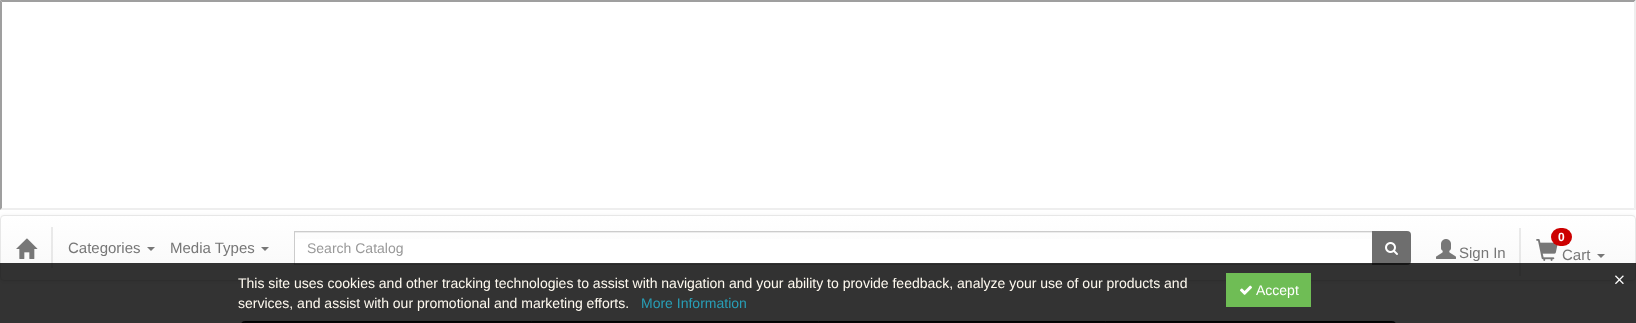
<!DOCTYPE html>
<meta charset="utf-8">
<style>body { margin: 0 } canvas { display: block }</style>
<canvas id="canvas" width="1636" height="323"></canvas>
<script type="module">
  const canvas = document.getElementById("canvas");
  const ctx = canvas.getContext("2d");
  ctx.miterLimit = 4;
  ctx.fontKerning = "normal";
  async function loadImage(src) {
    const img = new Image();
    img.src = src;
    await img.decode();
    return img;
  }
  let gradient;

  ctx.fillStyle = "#ffffff";
  ctx.fillRect(0, 0, 1636, 323);
  ctx.fillStyle = "#9f9f9f";
  ctx.beginPath();
  ctx.moveTo(0, 0);
  ctx.lineTo(1636, 0);
  ctx.lineTo(1634, 2);
  ctx.lineTo(2, 2);
  ctx.closePath();
  ctx.fill();
  ctx.fillStyle = "#eeeeee";
  ctx.beginPath();
  ctx.moveTo(1636, 0);
  ctx.lineTo(1636, 210);
  ctx.lineTo(1634, 208);
  ctx.lineTo(1634, 2);
  ctx.closePath();
  ctx.fill();
  ctx.beginPath();
  ctx.moveTo(1636, 210);
  ctx.lineTo(0, 210);
  ctx.lineTo(2, 208);
  ctx.lineTo(1634, 208);
  ctx.closePath();
  ctx.fill();
  ctx.fillStyle = "#9f9f9f";
  ctx.beginPath();
  ctx.moveTo(0, 210);
  ctx.lineTo(0, 0);
  ctx.lineTo(2, 2);
  ctx.lineTo(2, 208);
  ctx.closePath();
  ctx.fill();
  ctx.fillStyle = "rgba(0, 0, 0, 0.07)";
  ctx.filter = "blur(2.5px)";
  ctx.beginPath();
  ctx.roundRect(0, 216, 1636, 66, 4);
  ctx.fill();
  ctx.filter = "none";
  ctx.save();
  ctx.beginPath();
  ctx.roundRect(0, 215, 1636, 66, 4);
  ctx.clip();
  gradient = ctx.createLinearGradient(818, 216, 818, 280);
  gradient.addColorStop(0, "#ffffff");
  gradient.addColorStop(1, "#f8f8f8");
  ctx.fillStyle = gradient;
  ctx.fillRect(0, 216, 1636, 64);
  ctx.restore();
  gradient = ctx.createLinearGradient(818, 216, 818, 280);
  gradient.addColorStop(0, "#ebebeb");
  gradient.addColorStop(1, "#e5e5e5");
  ctx.fillStyle = gradient;
  ctx.fillRect(1519, 228, 2, 48);
  ctx.fillRect(51, 227, 2, 41);
  ctx.beginPath();
  ctx.roundRect(0.5, 215.5, 1635, 65, 3.5);
  ctx.strokeStyle = "#e7e7e7";
  ctx.stroke();
  ctx.drawImage(await loadImage("img1.png"), 16, 238, 22, 21);
  ctx.font = "15px Liberation Sans";
  ctx.fillStyle = "#777777";
  ctx.fillText("Categories", 68, 253);
  ctx.beginPath();
  ctx.moveTo(147, 247);
  ctx.lineTo(155, 247);
  ctx.lineTo(151, 251);
  ctx.closePath();
  ctx.fill();
  ctx.fillText("Media Types", 170, 253);
  ctx.beginPath();
  ctx.moveTo(261, 247);
  ctx.lineTo(269, 247);
  ctx.lineTo(265, 251);
  ctx.closePath();
  ctx.fill();
  ctx.fillStyle = "#ffffff";
  ctx.fillRect(295, 239, 1077, 25);
  ctx.fillStyle = "#ececec";
  ctx.fillRect(295, 232, 1077, 1);
  ctx.strokeStyle = "#cccccc";
  ctx.strokeRect(294.5, 231.5, 1078, 33);
  ctx.font = "14px Liberation Sans";
  ctx.fillStyle = "#999999";
  ctx.fillText("Search Catalog", 307, 253);
  ctx.fillStyle = "#6e6e6e";
  ctx.beginPath();
  ctx.roundRect(1372, 231, 39, 34, [0, 4, 4, 0]);
  ctx.fill();
  ctx.drawImage(await loadImage("img2.png"), 1385, 242, 13, 13);
  ctx.drawImage(await loadImage("img3.png"), 1436, 239, 20, 20);
  ctx.font = "15px Liberation Sans";
  ctx.fillStyle = "#777777";
  ctx.fillText("Sign In", 1459, 258);
  ctx.drawImage(await loadImage("img4.png"), 1536, 239, 22, 22);
  ctx.fillStyle = "#cc0000";
  ctx.beginPath();
  ctx.roundRect(1551, 228, 21, 18, 9);
  ctx.fill();
  ctx.font = "bold 12px Liberation Sans";
  ctx.fillStyle = "#ffffff";
  ctx.fillText("0", 1558, 241);
  ctx.font = "15px Liberation Sans";
  ctx.fillStyle = "#777777";
  ctx.fillText("Cart", 1562, 260);
  ctx.beginPath();
  ctx.moveTo(1597, 254);
  ctx.lineTo(1605, 254);
  ctx.lineTo(1601, 258);
  ctx.closePath();
  ctx.fill();
  ctx.fillStyle = "#222222";
  ctx.beginPath();
  ctx.roundRect(241.5, 321.5, 1154, 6, 3.5);
  ctx.fill();
  ctx.strokeStyle = "#080808";
  ctx.stroke();
  ctx.fillStyle = "rgba(0, 0, 0, 0.8)";
  ctx.fillRect(0, 263, 1636, 60);
  ctx.font = "14px Liberation Sans";
  ctx.fillStyle = "#fffaf0";
  ctx.fillText("This site uses cookies and other tracking technologies to assist with navigation and your ability to provide feedback, analyze your use of our products and", 238, 288);
  ctx.fillText("services, and assist with our promotional and marketing efforts.", 238, 308);
  ctx.fillStyle = "#289fb7";
  ctx.fillText("More Information", 641, 308);
  ctx.fillStyle = "#6fbd55";
  ctx.fillRect(1226, 273, 85, 34);
  ctx.drawImage(await loadImage("img5.png"), 1240, 285, 12, 10);
  ctx.fillStyle = "#ffffff";
  ctx.fillText("Accept", 1256, 295);
  ctx.drawImage(await loadImage("img6.png"), 1615, 275, 9, 10);
</script>
